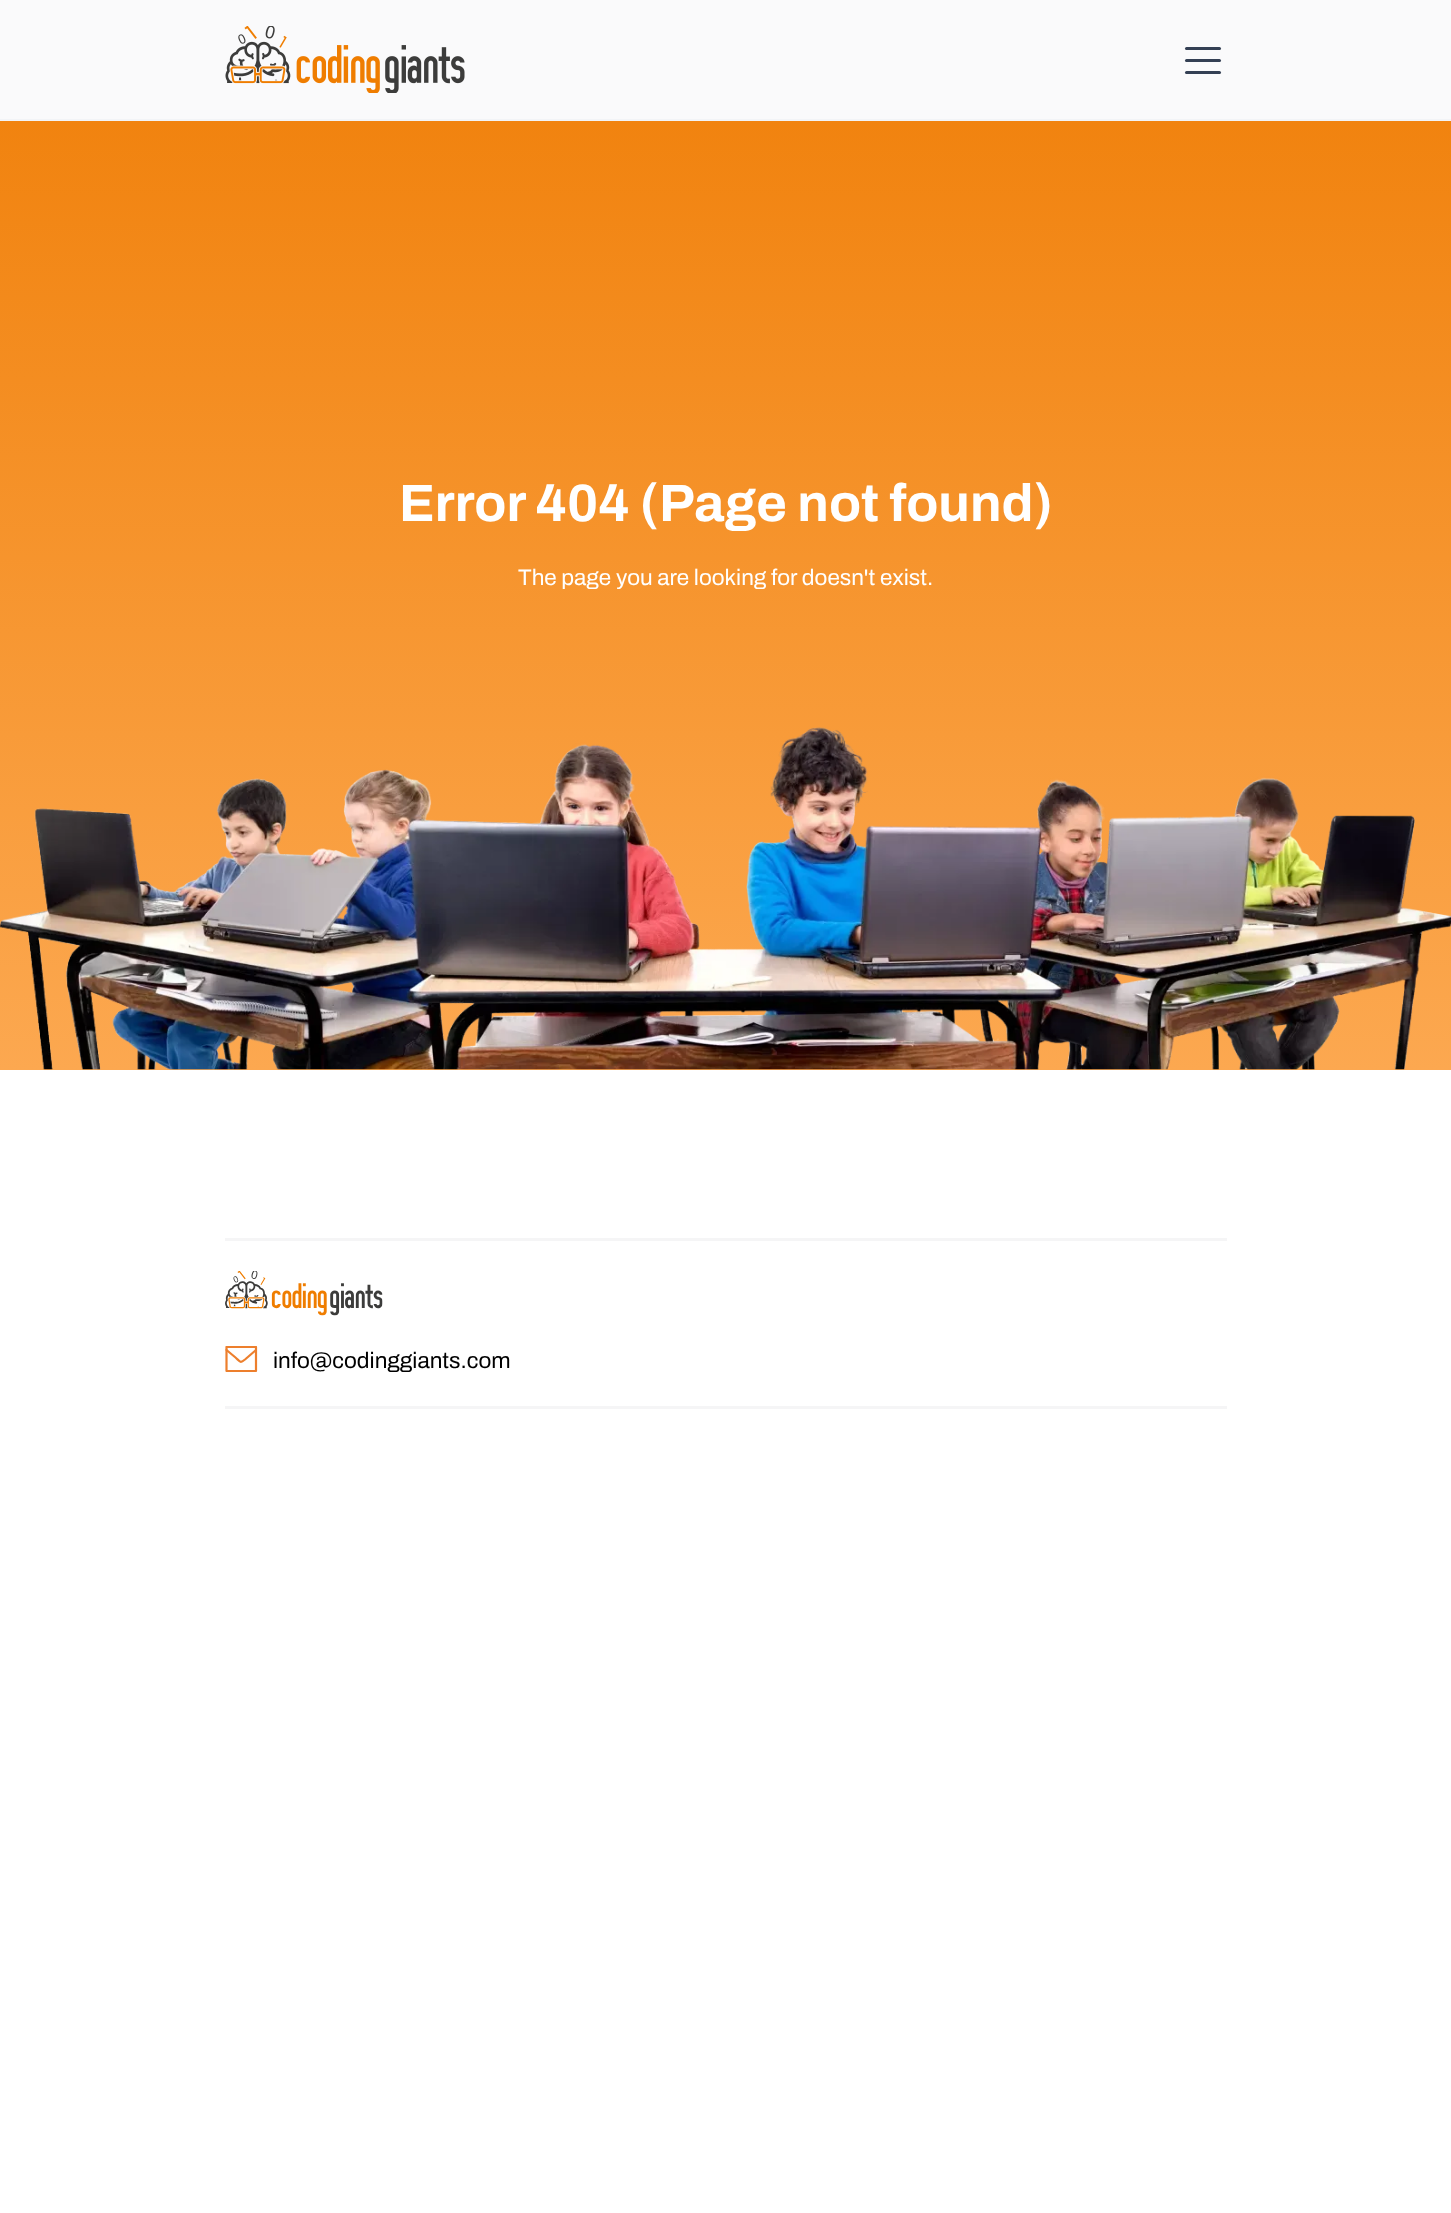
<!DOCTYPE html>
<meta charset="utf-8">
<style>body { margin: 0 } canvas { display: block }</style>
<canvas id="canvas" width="1451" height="2213"></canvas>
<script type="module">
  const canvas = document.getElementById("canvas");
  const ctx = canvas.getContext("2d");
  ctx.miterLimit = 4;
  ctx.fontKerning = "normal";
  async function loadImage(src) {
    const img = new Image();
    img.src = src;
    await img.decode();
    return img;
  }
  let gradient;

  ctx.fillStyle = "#ffffff";
  ctx.fillRect(0, 0, 1451, 2213);
  ctx.fillStyle = "#fafafb";
  ctx.fillRect(0, 0, 1451, 119);
  ctx.fillStyle = "#f2f4f7";
  ctx.fillRect(0, 119, 1451, 2);
  ctx.drawImage(await loadImage("img1.png"), 225, 26, 240, 67);
  ctx.fillStyle = "#344054";
  ctx.beginPath();
  ctx.roundRect(1185, 47, 36, 3, 1.5);
  ctx.fill();
  ctx.beginPath();
  ctx.roundRect(1185, 59, 36, 3, 1.5);
  ctx.fill();
  ctx.beginPath();
  ctx.roundRect(1185, 71, 36, 3, 1.5);
  ctx.fill();
  gradient = ctx.createLinearGradient(726, 120, 726, 1070);
  gradient.addColorStop(0, "#f1830f");
  gradient.addColorStop(1, "#fca850");
  ctx.fillStyle = gradient;
  ctx.fillRect(0, 121, 1451, 949);
  ctx.font = "bold 52.5px Archivo";
  ctx.fillStyle = "#ffffff";
  ctx.fillText("Error 404 (Page not found)", 399, 521);
  ctx.font = "22.5px Archivo";
  ctx.fillText("The page you are looking for doesn't exist.", 518, 585);
  ctx.drawImage(await loadImage("img2.png"), 0, 727, 1451, 343);
  ctx.fillStyle = "#f5f5f6";
  ctx.fillRect(225, 1238, 1002, 3);
  ctx.fillRect(225, 1406, 1002, 3);
  ctx.drawImage(await loadImage("img3.png"), 225, 1271, 158, 45);
  ctx.save();
  ctx.beginPath();
  ctx.rect(225, 1346, 33, 27);
  ctx.clip();
  ctx.beginPath();
  ctx.moveTo(226.5, 1347);
  ctx.lineTo(256, 1347);
  ctx.lineTo(256, 1371);
  ctx.lineTo(226.5, 1371);
  ctx.closePath();
  ctx.strokeStyle = "#ed7f2d";
  ctx.lineWidth = 2.2;
  ctx.lineCap = "round";
  ctx.lineJoin = "round";
  ctx.stroke();
  ctx.restore();
  ctx.beginPath();
  ctx.moveTo(226.5, 1350);
  ctx.lineTo(235.5, 1357.5);
  ctx.bezierCurveTo(240.5, 1362, 240, 1363.5, 245, 1359.5);
  ctx.lineTo(256, 1350);
  ctx.strokeStyle = "#ed7f2d";
  ctx.lineWidth = 2.2;
  ctx.lineCap = "round";
  ctx.lineJoin = "round";
  ctx.stroke();
  ctx.fillStyle = "#000000";
  ctx.fillText("info@codinggiants.com", 273, 1368);
</script>
